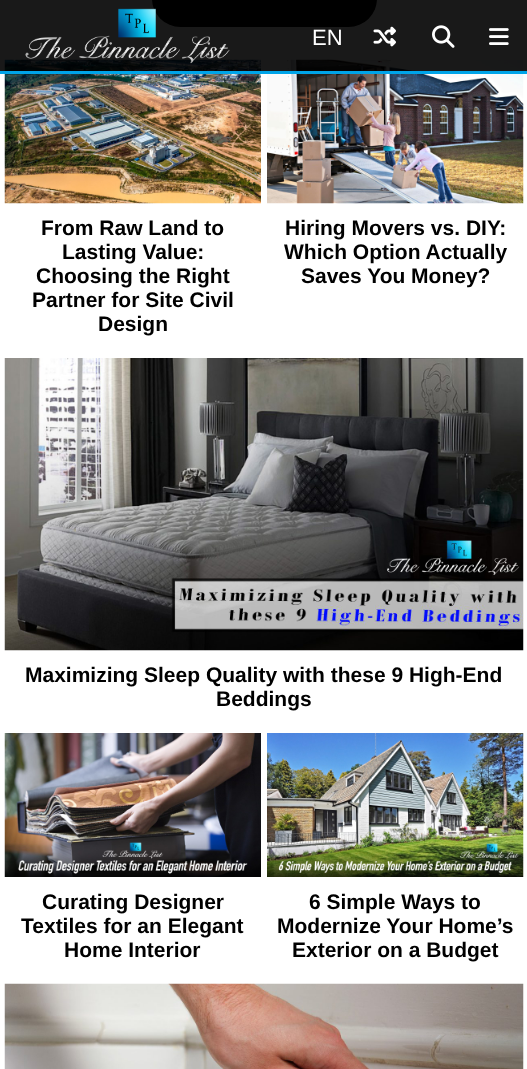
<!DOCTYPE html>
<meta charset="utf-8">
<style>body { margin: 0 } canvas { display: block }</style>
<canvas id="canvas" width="527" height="1069"></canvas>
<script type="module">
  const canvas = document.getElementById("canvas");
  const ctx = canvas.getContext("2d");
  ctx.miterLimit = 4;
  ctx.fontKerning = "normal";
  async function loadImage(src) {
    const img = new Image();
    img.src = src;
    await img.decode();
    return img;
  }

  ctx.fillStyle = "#ffffff";
  ctx.fillRect(0, 0, 527, 1069);
  ctx.fillStyle = "#000000";
  ctx.beginPath();
  ctx.roundRect(152, -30, 225, 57, 30);
  ctx.fill();
  ctx.drawImage(await loadImage("img5.png"), 4, 59, 257, 145);
  ctx.drawImage(await loadImage("img6.png"), 267, 59, 257, 145);
  ctx.fillStyle = "rgba(0, 0, 0, 0.9)";
  ctx.fillRect(0, 0, 527, 71);
  ctx.fillStyle = "#00a4e8";
  ctx.fillRect(0, 71, 527, 3);
  ctx.drawImage(await loadImage("img1.png"), 25, 8, 205, 56);
  ctx.font = "22px Liberation Sans";
  ctx.fillStyle = "#ffffff";
  ctx.fillText("EN", 312, 45);
  ctx.drawImage(await loadImage("img2.png"), 373, 26, 23, 21);
  ctx.drawImage(await loadImage("img3.png"), 432, 25, 23, 23);
  ctx.drawImage(await loadImage("img4.png"), 489, 28, 20, 17);
  ctx.font = "bold 21px Liberation Sans";
  ctx.fillStyle = "#000000";
  ctx.fillText("From Raw Land to", 41, 235);
  ctx.fillText("Lasting Value:", 62, 259);
  ctx.fillText("Choosing the Right", 36, 283);
  ctx.fillText("Partner for Site Civil", 32, 307);
  ctx.fillText("Design", 98, 331);
  ctx.fillText("Hiring Movers vs. DIY:", 285, 235);
  ctx.fillText("Which Option Actually", 284, 259);
  ctx.fillText("Saves You Money?", 301, 283);
  ctx.drawImage(await loadImage("img7.png"), 4, 358, 520, 293);
  ctx.fillText("Maximizing Sleep Quality with these 9 High-End", 25, 682);
  ctx.fillText("Beddings", 216, 706);
  ctx.drawImage(await loadImage("img8.png"), 4, 733, 257, 144);
  ctx.fillText("Curating Designer", 42, 909);
  ctx.fillText("Textiles for an Elegant", 21, 933);
  ctx.fillText("Home Interior", 64, 957);
  ctx.drawImage(await loadImage("img9.png"), 267, 733, 257, 144);
  ctx.fillText("6 Simple Ways to", 309, 909);
  ctx.fillText("Modernize Your Home’s", 277, 933);
  ctx.fillText("Exterior on a Budget", 292, 957);
  ctx.drawImage(await loadImage("img10.png"), 4, 983, 520, 86);
</script>
